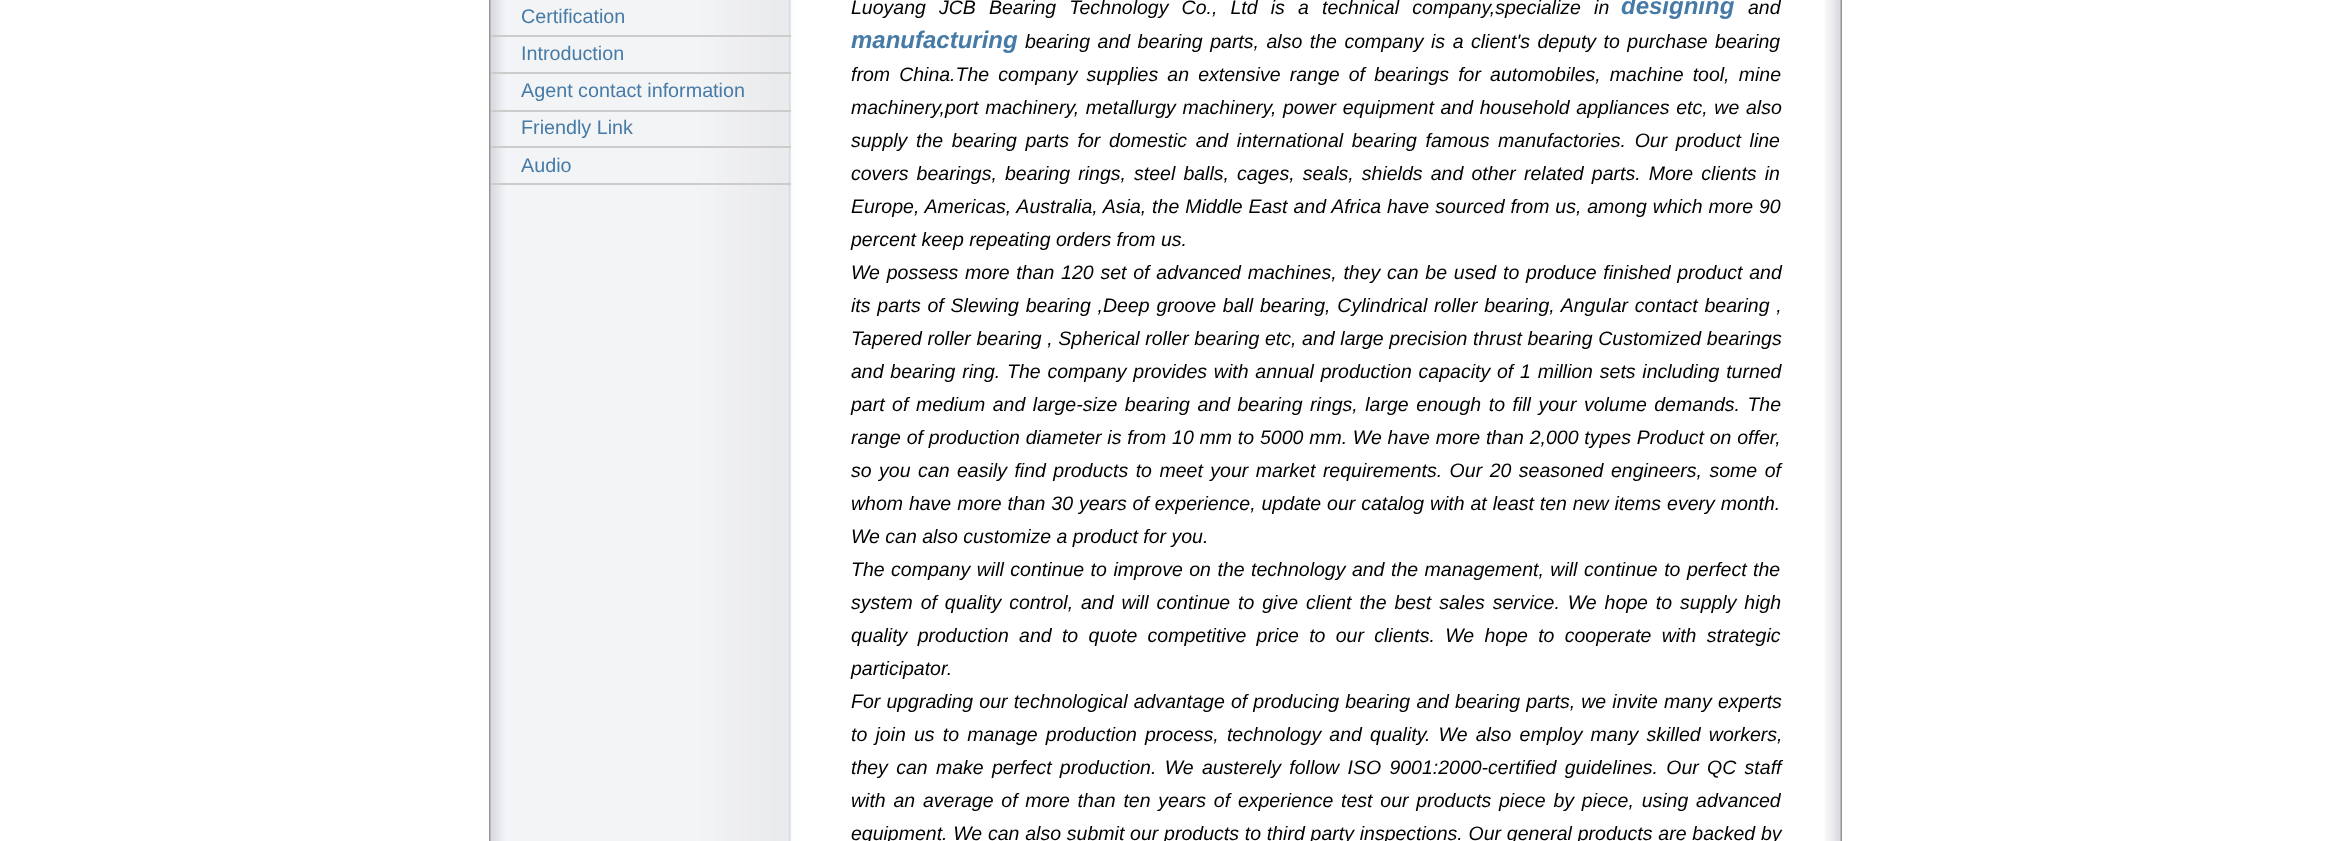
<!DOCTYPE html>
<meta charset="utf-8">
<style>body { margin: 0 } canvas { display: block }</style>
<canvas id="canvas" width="2330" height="841"></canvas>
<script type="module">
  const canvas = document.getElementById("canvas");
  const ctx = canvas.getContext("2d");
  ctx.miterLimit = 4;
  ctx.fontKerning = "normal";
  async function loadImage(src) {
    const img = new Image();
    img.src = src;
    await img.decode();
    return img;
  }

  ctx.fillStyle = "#ffffff";
  ctx.fillRect(0, 0, 2330, 841);
  ctx.strokeStyle = "#969696";
  ctx.lineWidth = 2;
  ctx.strokeRect(490, -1, 1351, 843);
  ctx.drawImage(await loadImage("img1.png"), 490, 0, 1351, 841);
  ctx.fillStyle = "#cccccc";
  ctx.fillRect(491, 35, 300, 2);
  ctx.font = "19.75px Liberation Sans";
  ctx.fillStyle = "#467aa7";
  ctx.fillText("Certification", 521, 23);
  ctx.fillStyle = "#cccccc";
  ctx.fillRect(491, 72, 300, 2);
  ctx.fillStyle = "#467aa7";
  ctx.fillText("Introduction", 521, 60);
  ctx.fillStyle = "#cccccc";
  ctx.fillRect(491, 110, 300, 2);
  ctx.fillStyle = "#467aa7";
  ctx.fillText("Agent contact information", 521, 97);
  ctx.fillStyle = "#cccccc";
  ctx.fillRect(491, 146, 300, 2);
  ctx.fillStyle = "#467aa7";
  ctx.fillText("Friendly Link", 521, 134);
  ctx.fillStyle = "#cccccc";
  ctx.fillRect(491, 183, 300, 2);
  ctx.fillStyle = "#467aa7";
  ctx.fillText("Audio", 521, 172);
  ctx.wordSpacing = "7.75px";
  ctx.font = "italic 19.5px Liberation Sans";
  ctx.fillStyle = "#000000";
  ctx.fillText("Luoyang JCB Bearing Technology Co., Ltd is a technical company,specialize in", 851, 14);
  ctx.wordSpacing = "0px";
  ctx.font = "italic bold 24px Liberation Sans";
  ctx.fillStyle = "#467aa7";
  ctx.fillText("designing", 1621, 14);
  ctx.font = "italic 19.5px Liberation Sans";
  ctx.fillStyle = "#000000";
  ctx.fillText("and", 1748, 14);
  ctx.font = "italic bold 24px Liberation Sans";
  ctx.fillStyle = "#467aa7";
  ctx.fillText("manufacturing", 851, 48);
  ctx.wordSpacing = "2.1px";
  ctx.font = "italic 19.5px Liberation Sans";
  ctx.fillStyle = "#000000";
  ctx.fillText("bearing and bearing parts, also the company is a client's deputy to purchase bearing", 1025, 48);
  ctx.wordSpacing = "3.75px";
  ctx.fillText("from China.The company supplies an extensive range of bearings for automobiles, machine tool, mine", 851, 81);
  ctx.wordSpacing = "1.25px";
  ctx.fillText("machinery,port machinery, metallurgy machinery, power equipment and household appliances etc, we also", 851, 114);
  ctx.wordSpacing = "3.25px";
  ctx.fillText("supply the bearing parts for domestic and international bearing famous manufactories. Our product line", 851, 147);
  ctx.wordSpacing = "2.75px";
  ctx.fillText("covers bearings, bearing rings, steel balls, cages, seals, shields and other related parts. More clients in", 851, 180);
  ctx.wordSpacing = "0.5px";
  ctx.fillText("Europe, Americas, Australia, Asia, the Middle East and Africa have sourced from us, among which more 90", 851, 213);
  ctx.wordSpacing = "0px";
  ctx.fillText("percent keep repeating orders from us.", 851, 246);
  ctx.wordSpacing = "1.4px";
  ctx.fillText("We possess more than 120 set of advanced machines, they can be used to produce finished product and", 851, 279);
  ctx.fillText("its parts of Slewing bearing ,Deep groove ball bearing, Cylindrical roller bearing, Angular contact bearing ,", 851, 312);
  ctx.wordSpacing = "0.25px";
  ctx.fillText("Tapered roller bearing , Spherical roller bearing etc, and large precision thrust bearing Customized bearings", 851, 345);
  ctx.wordSpacing = "1.4px";
  ctx.fillText("and bearing ring. The company provides with annual production capacity of 1 million sets including turned", 851, 378);
  ctx.wordSpacing = "2.1px";
  ctx.fillText("part of medium and large-size bearing and bearing rings, large enough to fill your volume demands. The", 851, 411);
  ctx.wordSpacing = "0.4px";
  ctx.fillText("range of production diameter is from 10 mm to 5000 mm. We have more than 2,000 types Product on offer,", 851, 444);
  ctx.wordSpacing = "2.1px";
  ctx.fillText("so you can easily find products to meet your market requirements. Our 20 seasoned engineers, some of", 851, 477);
  ctx.wordSpacing = "0.5px";
  ctx.fillText("whom have more than 30 years of experience, update our catalog with at least ten new items every month.", 851, 510);
  ctx.wordSpacing = "0px";
  ctx.fillText("We can also customize a product for you.", 851, 543);
  ctx.wordSpacing = "1.1px";
  ctx.fillText("The company will continue to improve on the technology and the management, will continue to perfect the", 851, 576);
  ctx.wordSpacing = "2.5px";
  ctx.fillText("system of quality control, and will continue to give client the best sales service. We hope to supply high", 851, 609);
  ctx.wordSpacing = "4.9px";
  ctx.fillText("quality production and to quote competitive price to our clients. We hope to cooperate with strategic", 851, 642);
  ctx.wordSpacing = "0px";
  ctx.fillText("participator.", 851, 675);
  ctx.wordSpacing = "0.75px";
  ctx.fillText("For upgrading our technological advantage of producing bearing and bearing parts, we invite many experts", 851, 708);
  ctx.wordSpacing = "2.75px";
  ctx.fillText("to join us to manage production process, technology and quality. We also employ many skilled workers,", 851, 741);
  ctx.wordSpacing = "2.9px";
  ctx.fillText("they can make perfect production. We austerely follow ISO 9001:2000-certified guidelines. Our QC staff", 851, 774);
  ctx.wordSpacing = "2.4px";
  ctx.fillText("with an average of more than ten years of experience test our products piece by piece, using advanced", 851, 807);
  ctx.wordSpacing = "0.4px";
  ctx.fillText("equipment. We can also submit our products to third party inspections. Our general products are backed by", 851, 840);
</script>
